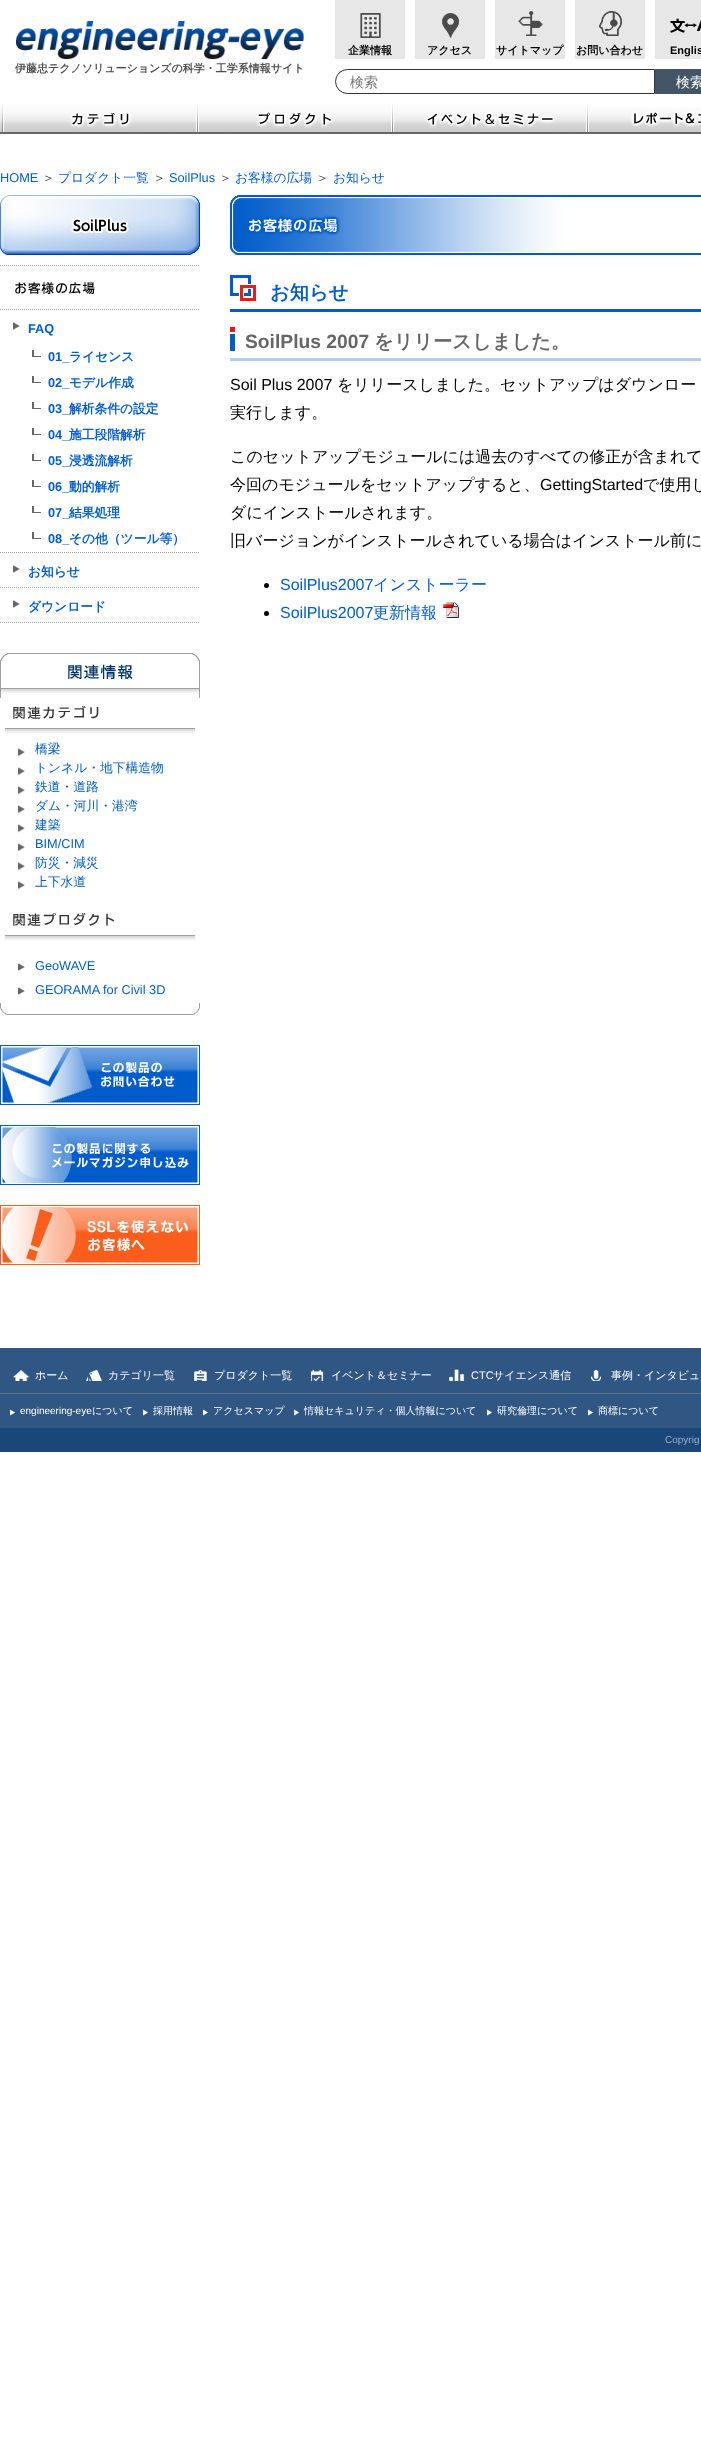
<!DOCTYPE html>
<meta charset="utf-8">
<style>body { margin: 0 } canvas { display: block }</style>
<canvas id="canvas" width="701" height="2437"></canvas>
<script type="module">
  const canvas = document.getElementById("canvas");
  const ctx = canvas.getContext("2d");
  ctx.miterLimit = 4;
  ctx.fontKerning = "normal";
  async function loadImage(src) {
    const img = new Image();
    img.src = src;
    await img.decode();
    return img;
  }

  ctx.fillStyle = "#ffffff";
  ctx.fillRect(0, 0, 701, 2437);
  ctx.drawImage(await loadImage("img1.png"), 16, 21, 289, 39);
  ctx.font = "bold 11px WenQuanYi Zen Hei";
  ctx.fillStyle = "#4d4d4d";
  ctx.fillText("伊藤忠テクノソリューションズの科学・工学系情報サイト", 15, 72);
  ctx.fillStyle = "#e7e7e7";
  ctx.fillRect(335, 0, 70, 59);
  ctx.drawImage(await loadImage("img2.png"), 360, 13, 21, 25);
  ctx.fillStyle = "#000000";
  ctx.fillText("企業情報", 348, 54);
  ctx.fillStyle = "#e7e7e7";
  ctx.fillRect(415, 0, 70, 59);
  ctx.drawImage(await loadImage("img3.png"), 442, 13, 17, 25);
  ctx.fillStyle = "#000000";
  ctx.fillText("アクセス", 427, 54);
  ctx.fillStyle = "#e7e7e7";
  ctx.fillRect(495, 0, 70, 59);
  ctx.drawImage(await loadImage("img4.png"), 518, 11, 25, 25);
  ctx.fillStyle = "#000000";
  ctx.fillText("サイトマップ", 496, 54);
  ctx.fillStyle = "#e7e7e7";
  ctx.fillRect(575, 0, 70, 59);
  ctx.drawImage(await loadImage("img5.png"), 599, 11, 23, 25);
  ctx.fillStyle = "#000000";
  ctx.fillText("お問い合わせ", 576, 54);
  ctx.fillStyle = "#e7e7e7";
  ctx.fillRect(655, 0, 46, 59);
  ctx.drawImage(await loadImage("img6.png"), 670, 18, 31, 15);
  ctx.font = "bold 11px Liberation Sans";
  ctx.fillStyle = "#000000";
  ctx.fillText("Englis", 670, 54);
  ctx.beginPath();
  ctx.roundRect(335.5, 69.5, 319, 24, [12, 0, 0, 12]);
  ctx.strokeStyle = "#333333";
  ctx.stroke();
  ctx.font = "500 14px WenQuanYi Zen Hei";
  ctx.fillStyle = "#757575";
  ctx.fillText("検索", 350, 87);
  ctx.fillStyle = "#445566";
  ctx.fillRect(655, 69, 46, 25);
  ctx.fillStyle = "#ffffff";
  ctx.fillText("検索", 676, 87);
  ctx.drawImage(await loadImage("img7.png"), 0, 107, 701, 27);
  ctx.drawImage(await loadImage("img8.png"), 2, 102, 196, 30);
  ctx.drawImage(await loadImage("img9.png"), 198, 102, 195, 30);
  ctx.drawImage(await loadImage("img10.png"), 393, 102, 195, 30);
  ctx.drawImage(await loadImage("img11.png"), 588, 107, 113, 25);
  ctx.font = "12.75px Liberation Sans";
  ctx.fillStyle = "#005cca";
  ctx.fillText("HOME", 0, 182);
  ctx.font = "500 12.75px WenQuanYi Zen Hei";
  ctx.fillStyle = "#333333";
  ctx.fillText("＞", 42, 182);
  ctx.fillStyle = "#005cca";
  ctx.fillText("プロダクト一覧", 58, 182);
  ctx.fillStyle = "#333333";
  ctx.fillText("＞", 153, 182);
  ctx.font = "12.75px Liberation Sans";
  ctx.fillStyle = "#005cca";
  ctx.fillText("SoilPlus", 169, 182);
  ctx.font = "500 12.75px WenQuanYi Zen Hei";
  ctx.fillStyle = "#333333";
  ctx.fillText("＞", 219, 182);
  ctx.fillStyle = "#005cca";
  ctx.fillText("お客様の広場", 235, 182);
  ctx.fillStyle = "#333333";
  ctx.fillText("＞", 316, 182);
  ctx.fillStyle = "#005cca";
  ctx.fillText("お知らせ", 333, 182);
  ctx.drawImage(await loadImage("img12.png"), 0, 195, 200, 60);
  ctx.drawImage(await loadImage("img13.png"), 0, 265, 199, 29);
  ctx.drawImage(await loadImage("img14.png"), 0, 309, 199, 21);
  ctx.font = "bold 12.75px Liberation Sans";
  ctx.fillText("FAQ", 28, 333);
  ctx.drawImage(await loadImage("img15.png"), 32, 350, 9, 7);
  ctx.fillText("01_", 48, 361);
  ctx.font = "bold 12.75px WenQuanYi Zen Hei";
  ctx.fillText("ライセンス", 69, 361);
  ctx.drawImage(await loadImage("img15.png"), 32, 376, 9, 7);
  ctx.font = "bold 12.75px Liberation Sans";
  ctx.fillText("02_", 48, 387);
  ctx.font = "bold 12.75px WenQuanYi Zen Hei";
  ctx.fillText("モデル作成", 69, 387);
  ctx.drawImage(await loadImage("img15.png"), 32, 402, 9, 7);
  ctx.font = "bold 12.75px Liberation Sans";
  ctx.fillText("03_", 48, 413);
  ctx.font = "bold 12.75px WenQuanYi Zen Hei";
  ctx.fillText("解析条件の設定", 69, 413);
  ctx.drawImage(await loadImage("img15.png"), 32, 428, 9, 7);
  ctx.font = "bold 12.75px Liberation Sans";
  ctx.fillText("04_", 48, 439);
  ctx.font = "bold 12.75px WenQuanYi Zen Hei";
  ctx.fillText("施工段階解析", 69, 439);
  ctx.drawImage(await loadImage("img15.png"), 32, 454, 9, 7);
  ctx.font = "bold 12.75px Liberation Sans";
  ctx.fillText("05_", 48, 465);
  ctx.font = "bold 12.75px WenQuanYi Zen Hei";
  ctx.fillText("浸透流解析", 69, 465);
  ctx.drawImage(await loadImage("img15.png"), 32, 480, 9, 7);
  ctx.font = "bold 12.75px Liberation Sans";
  ctx.fillText("06_", 48, 491);
  ctx.font = "bold 12.75px WenQuanYi Zen Hei";
  ctx.fillText("動的解析", 69, 491);
  ctx.drawImage(await loadImage("img15.png"), 32, 506, 9, 7);
  ctx.font = "bold 12.75px Liberation Sans";
  ctx.fillText("07_", 48, 517);
  ctx.font = "bold 12.75px WenQuanYi Zen Hei";
  ctx.fillText("結果処理", 69, 517);
  ctx.drawImage(await loadImage("img15.png"), 32, 532, 9, 7);
  ctx.font = "bold 12.75px Liberation Sans";
  ctx.fillText("08_", 48, 543);
  ctx.font = "bold 12.75px WenQuanYi Zen Hei";
  ctx.fillText("その他（ツール等）", 69, 543);
  ctx.drawImage(await loadImage("img14.png"), 0, 552, 199, 21);
  ctx.fillText("お知らせ", 28, 576);
  ctx.drawImage(await loadImage("img14.png"), 0, 587, 199, 21);
  ctx.fillText("ダウンロード", 28, 611);
  ctx.drawImage(await loadImage("img16.png"), 0, 622, 199, 1);
  ctx.drawImage(await loadImage("img17.png"), 0, 653, 200, 45);
  ctx.drawImage(await loadImage("img18.png"), 5, 706, 190, 28);
  ctx.drawImage(await loadImage("img19.png"), 18, 748, 7, 9);
  ctx.font = "500 12.75px WenQuanYi Zen Hei";
  ctx.fillText("橋梁", 35, 753);
  ctx.drawImage(await loadImage("img19.png"), 18, 767, 7, 9);
  ctx.fillText("トンネル・地下構造物", 35, 772);
  ctx.drawImage(await loadImage("img19.png"), 18, 786, 7, 9);
  ctx.fillText("鉄道・道路", 35, 791);
  ctx.drawImage(await loadImage("img19.png"), 18, 805, 7, 9);
  ctx.fillText("ダム・河川・港湾", 35, 810);
  ctx.drawImage(await loadImage("img19.png"), 18, 824, 7, 9);
  ctx.fillText("建築", 35, 829);
  ctx.drawImage(await loadImage("img19.png"), 18, 843, 7, 9);
  ctx.font = "12.75px Liberation Sans";
  ctx.fillText("BIM/CIM", 35, 848);
  ctx.drawImage(await loadImage("img19.png"), 18, 862, 7, 9);
  ctx.font = "500 12.75px WenQuanYi Zen Hei";
  ctx.fillText("防災・減災", 35, 867);
  ctx.drawImage(await loadImage("img19.png"), 18, 881, 7, 9);
  ctx.fillText("上下水道", 35, 886);
  ctx.drawImage(await loadImage("img20.png"), 5, 913, 190, 28);
  ctx.drawImage(await loadImage("img21.png"), 18, 963, 7, 8);
  ctx.font = "12.75px Liberation Sans";
  ctx.fillText("GeoWAVE", 35, 970);
  ctx.drawImage(await loadImage("img21.png"), 18, 987, 7, 8);
  ctx.fillText("GEORAMA for Civil 3D", 35, 994);
  ctx.drawImage(await loadImage("img22.png"), 0, 1003, 200, 12);
  ctx.drawImage(await loadImage("img23.png"), 0, 1045, 200, 60);
  ctx.drawImage(await loadImage("img24.png"), 0, 1125, 200, 60);
  ctx.drawImage(await loadImage("img25.png"), 0, 1205, 200, 60);
  ctx.drawImage(await loadImage("img26.png"), 230, 195, 260, 60);
  ctx.drawImage(await loadImage("img27.png"), 490, 195, 211, 60);
  ctx.drawImage(await loadImage("img28.png"), 230, 275, 26, 26);
  ctx.fillRect(230, 309, 471, 3);
  ctx.font = "bold 19.25px WenQuanYi Zen Hei";
  ctx.fillText("お知らせ", 270, 299);
  ctx.drawImage(await loadImage("img29.png"), 230, 327, 5, 24);
  ctx.fillStyle = "#b2ceef";
  ctx.fillRect(230, 358, 471, 3);
  ctx.font = "bold 19.25px Liberation Sans";
  ctx.fillStyle = "#666666";
  ctx.fillText("SoilPlus 2007", 245, 348);
  ctx.font = "bold 19.25px WenQuanYi Zen Hei";
  ctx.fillText("をリリースしました。", 374, 348);
  ctx.font = "16px Liberation Sans";
  ctx.fillStyle = "#000000";
  ctx.fillText("Soil Plus 2007", 230, 390);
  ctx.font = "500 16px WenQuanYi Zen Hei";
  ctx.fillText("をリリースしました。セットアップはダウンロー", 337, 390);
  ctx.fillText("実行します。", 230, 418);
  ctx.fillText("このセットアップモジュールには過去のすべての修正が含まれて", 230, 462);
  ctx.fillText("今回のモジュールをセットアップすると、", 230, 490);
  ctx.font = "16px Liberation Sans";
  ctx.fillText("GettingStarted", 540, 490);
  ctx.font = "500 16px WenQuanYi Zen Hei";
  ctx.fillText("で使用し", 643, 490);
  ctx.fillText("ダにインストールされます。", 230, 518);
  ctx.fillText("旧バージョンがインストールされている場合はインストール前に", 230, 546);
  ctx.beginPath();
  ctx.arc(266.5, 585.5, 2.5, 0, Math.PI * 2);
  ctx.fill();
  ctx.font = "16px Liberation Sans";
  ctx.fillStyle = "#005cca";
  ctx.fillText("SoilPlus2007", 280, 590);
  ctx.font = "500 16px WenQuanYi Zen Hei";
  ctx.fillText("インストーラー", 373, 590);
  ctx.fillStyle = "#000000";
  ctx.beginPath();
  ctx.arc(266.5, 613.5, 2.5, 0, Math.PI * 2);
  ctx.fill();
  ctx.font = "16px Liberation Sans";
  ctx.fillStyle = "#005cca";
  ctx.fillText("SoilPlus2007", 280, 618);
  ctx.font = "500 16px WenQuanYi Zen Hei";
  ctx.fillText("更新情報", 373, 618);
  ctx.drawImage(await loadImage("img30.png"), 443, 602, 16, 16);
  ctx.fillStyle = "#305784";
  ctx.fillRect(0, 1348, 701, 80);
  ctx.fillStyle = "#5f7289";
  ctx.fillRect(0, 1393, 701, 1);
  ctx.drawImage(await loadImage("img31.png"), 13, 1370, 17, 11);
  ctx.font = "500 11px WenQuanYi Zen Hei";
  ctx.fillStyle = "#ffffff";
  ctx.fillText("ホーム", 35, 1379);
  ctx.drawImage(await loadImage("img32.png"), 86, 1370, 16, 11);
  ctx.fillText("カテゴリ一覧", 108, 1379);
  ctx.drawImage(await loadImage("img33.png"), 194, 1370, 13, 11);
  ctx.fillText("プロダクト一覧", 214, 1379);
  ctx.drawImage(await loadImage("img34.png"), 311, 1370, 13, 11);
  ctx.fillText("イベント＆セミナー", 331, 1379);
  ctx.drawImage(await loadImage("img35.png"), 449, 1369, 16, 12);
  ctx.font = "11px Liberation Sans";
  ctx.fillText("CTC", 471, 1379);
  ctx.font = "500 11px WenQuanYi Zen Hei";
  ctx.fillText("サイエンス通信", 493, 1379);
  ctx.drawImage(await loadImage("img36.png"), 591, 1370, 10, 11);
  ctx.fillText("事例・インタビュ", 611, 1379);
  ctx.drawImage(await loadImage("img37.png"), 10, 1409, 6, 7);
  ctx.font = "10px Liberation Sans";
  ctx.fillText("engineering-eye", 20, 1414);
  ctx.font = "500 10px WenQuanYi Zen Hei";
  ctx.fillText("について", 92, 1414);
  ctx.drawImage(await loadImage("img38.png"), 143, 1409, 5, 7);
  ctx.fillText("採用情報", 153, 1414);
  ctx.drawImage(await loadImage("img38.png"), 203, 1409, 5, 7);
  ctx.fillText("アクセスマップ", 213, 1414);
  ctx.drawImage(await loadImage("img37.png"), 294, 1409, 6, 7);
  ctx.fillText("情報セキュリティ・個人情報について", 304, 1414);
  ctx.drawImage(await loadImage("img37.png"), 487, 1409, 6, 7);
  ctx.fillText("研究倫理について", 497, 1414);
  ctx.drawImage(await loadImage("img37.png"), 588, 1409, 6, 7);
  ctx.fillText("商標について", 598, 1414);
  ctx.fillStyle = "#1b4679";
  ctx.fillRect(0, 1428, 701, 24);
  ctx.font = "10px Liberation Sans";
  ctx.fillStyle = "#9cafc6";
  ctx.fillText("Copyrig", 665, 1443);
</script>
